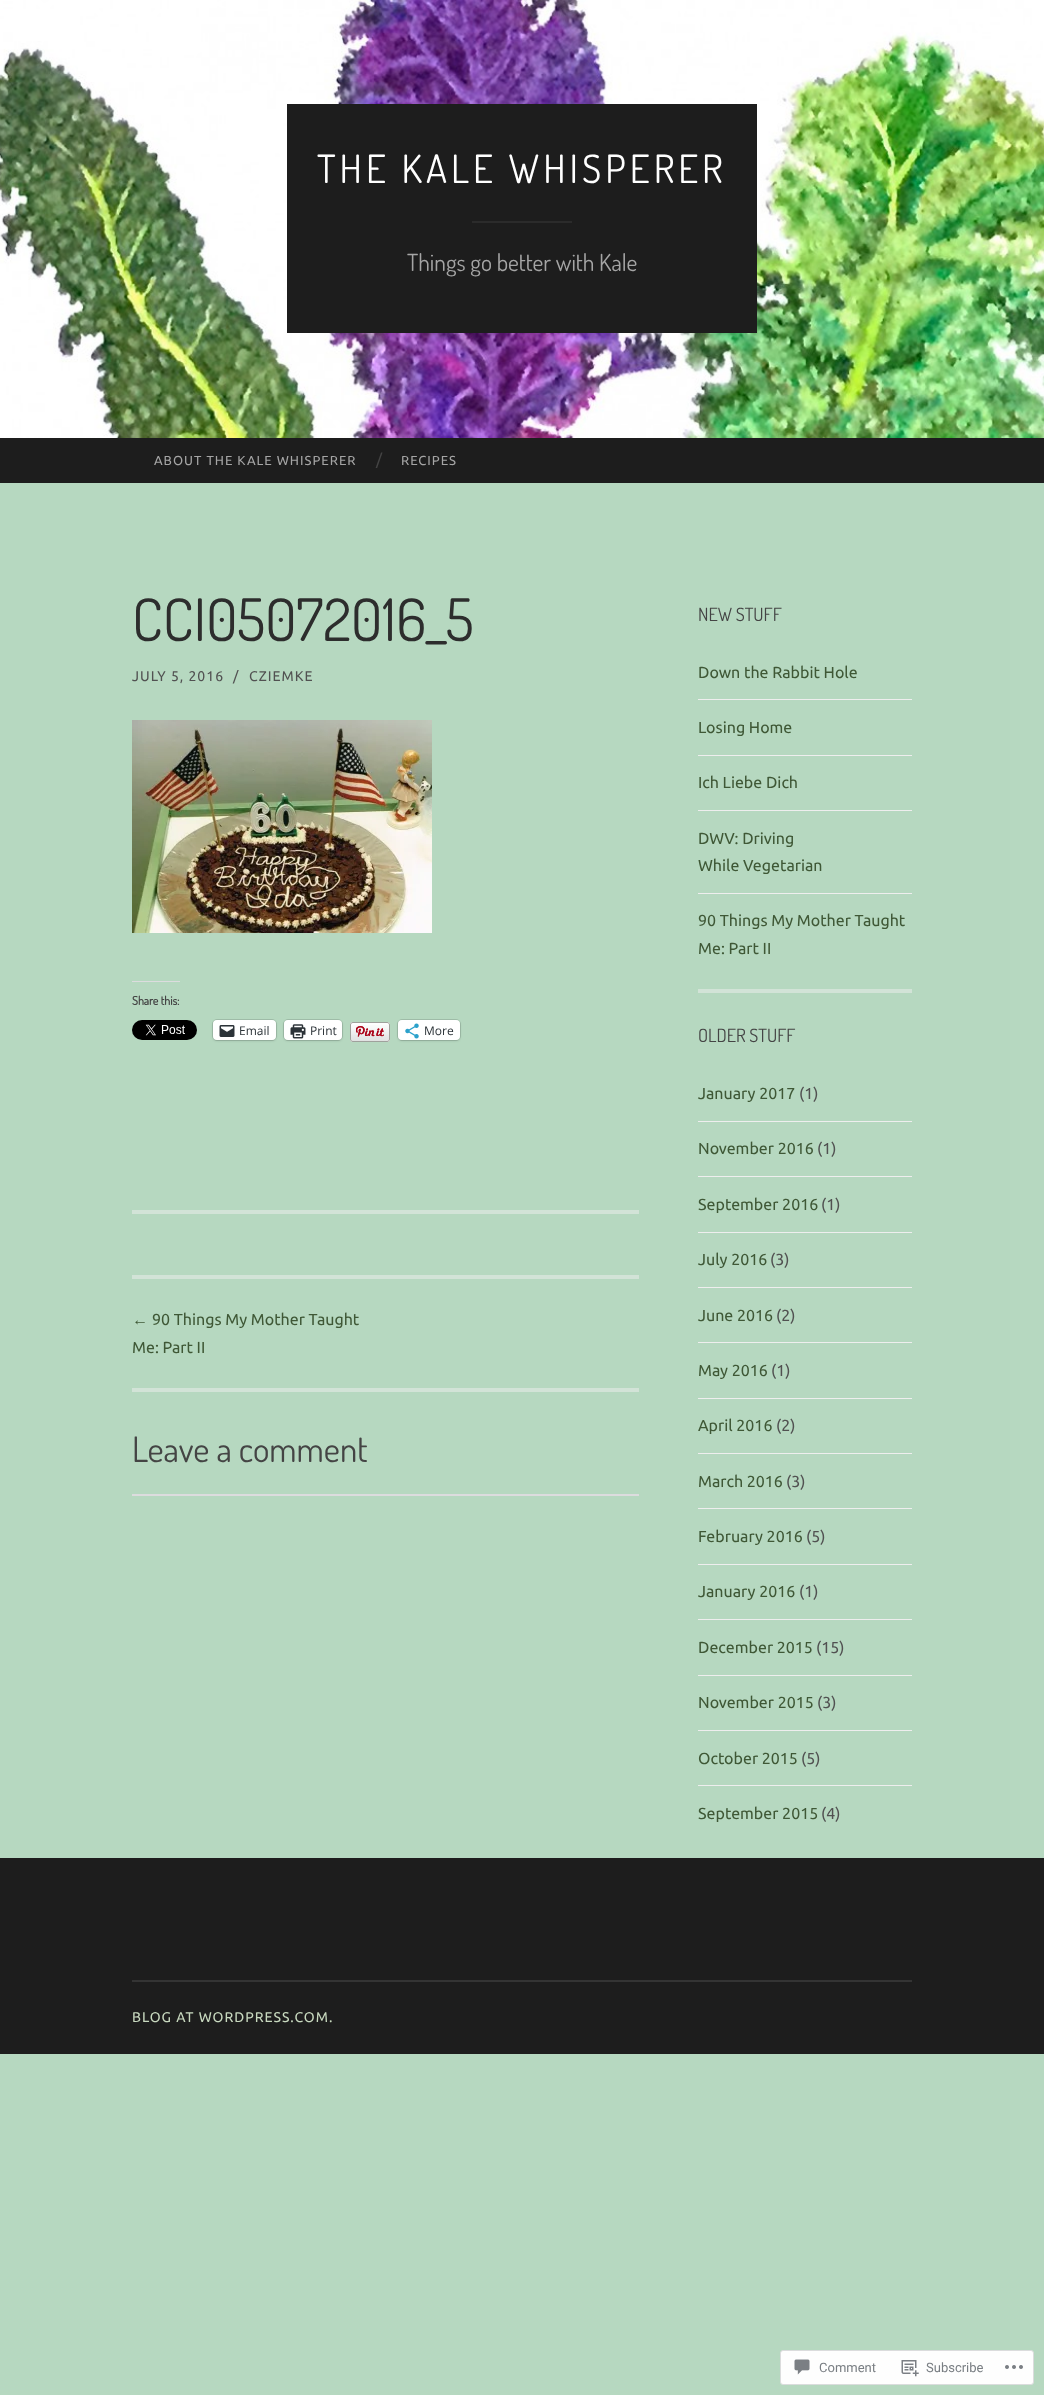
<!DOCTYPE html>
<meta charset="utf-8">
<style>body { margin: 0 } canvas { display: block }</style>
<canvas id="canvas" width="1044" height="2395"></canvas>
<script type="module">
  const canvas = document.getElementById("canvas");
  const ctx = canvas.getContext("2d");
  ctx.miterLimit = 4;
  ctx.fontKerning = "normal";
  async function loadImage(src) {
    const img = new Image();
    img.src = src;
    await img.decode();
    return img;
  }

  ctx.fillStyle = "#b6d8c0";
  ctx.fillRect(0, 0, 1044, 2395);
  ctx.drawImage(await loadImage("img1.png"), 0, 0, 1044, 438);
  ctx.fillStyle = "#1d1d1d";
  ctx.fillRect(287, 104, 470, 229);
  ctx.letterSpacing = "4px";
  ctx.font = "39px Dosis";
  ctx.fillStyle = "#ffffff";
  ctx.fillText("THE KALE WHISPERER", 317, 183);
  ctx.fillStyle = "#2b2b2b";
  ctx.fillRect(472, 221, 100, 2);
  ctx.letterSpacing = "0px";
  ctx.font = "23.5px Dosis";
  ctx.fillStyle = "#a5a5a5";
  ctx.fillText("Things go better with Kale", 407, 271);
  ctx.fillStyle = "#1d1d1d";
  ctx.fillRect(0, 438, 1044, 45);
  ctx.letterSpacing = "1px";
  ctx.font = "13px Ubuntu";
  ctx.fillStyle = "#a5a5a5";
  ctx.fillText("ABOUT THE KALE WHISPERER", 154, 465);
  ctx.letterSpacing = "0px";
  ctx.font = "16px Ubuntu";
  ctx.fillStyle = "#444444";
  ctx.fillText("/", 376, 465);
  ctx.letterSpacing = "1px";
  ctx.font = "13px Ubuntu";
  ctx.fillStyle = "#a5a5a5";
  ctx.fillText("RECIPES", 401, 465);
  ctx.fillStyle = "#d2e3d7";
  ctx.fillRect(132, 1210, 507, 4);
  ctx.letterSpacing = "0px";
  ctx.font = "58.5px Dosis";
  ctx.fillStyle = "#2d2d2d";
  ctx.fillText("CCI05072016_5", 132, 641);
  ctx.letterSpacing = "1px";
  ctx.font = "14px Ubuntu";
  ctx.fillStyle = "#515151";
  ctx.fillText("JULY 5, 2016", 132, 681);
  ctx.fillText("/", 233, 681);
  ctx.fillText("CZIEMKE", 249, 681);
  ctx.drawImage(await loadImage("img2.png"), 132, 720, 300, 213);
  ctx.fillStyle = "#dcdcde";
  ctx.fillRect(132, 981, 48, 1);
  ctx.letterSpacing = "0px";
  ctx.font = "bold 12px Dosis";
  ctx.fillStyle = "#444444";
  ctx.fillText("Share this:", 132, 1005);
  ctx.drawImage(await loadImage("img3.png"), 132, 1020, 65, 20);
  ctx.beginPath();
  ctx.roundRect(212.5, 1019.5, 64, 21, 4.5);
  ctx.strokeStyle = "#a0bea9";
  ctx.stroke();
  ctx.fillStyle = "rgba(0, 0, 0, 0.12)";
  ctx.filter = "blur(1px)";
  ctx.beginPath();
  ctx.roundRect(213, 1021, 63, 20, 4);
  ctx.fill();
  ctx.filter = "none";
  ctx.fillStyle = "#ffffff";
  ctx.beginPath();
  ctx.roundRect(213, 1020, 63, 20, 4);
  ctx.fill();
  ctx.drawImage(await loadImage("img4.png"), 219, 1025, 16, 12);
  ctx.font = "12px Open Sans";
  ctx.fillStyle = "#2c3338";
  ctx.fillText("Email", 239, 1035);
  ctx.beginPath();
  ctx.roundRect(283.5, 1019.5, 59, 21, 4.5);
  ctx.stroke();
  ctx.fillStyle = "rgba(0, 0, 0, 0.12)";
  ctx.filter = "blur(1px)";
  ctx.beginPath();
  ctx.roundRect(284, 1021, 58, 20, 4);
  ctx.fill();
  ctx.filter = "none";
  ctx.fillStyle = "#ffffff";
  ctx.beginPath();
  ctx.roundRect(284, 1020, 58, 20, 4);
  ctx.fill();
  ctx.drawImage(await loadImage("img5.png"), 290, 1024, 16, 15);
  ctx.fillStyle = "#2c3338";
  ctx.fillText("Print", 310, 1035);
  ctx.drawImage(await loadImage("img6.png"), 350, 1022, 40, 20);
  ctx.beginPath();
  ctx.roundRect(397.5, 1019.5, 63, 21, 4.5);
  ctx.stroke();
  ctx.fillStyle = "rgba(0, 0, 0, 0.12)";
  ctx.filter = "blur(1px)";
  ctx.beginPath();
  ctx.roundRect(398, 1021, 62, 20, 4);
  ctx.fill();
  ctx.filter = "none";
  ctx.fillStyle = "#ffffff";
  ctx.beginPath();
  ctx.roundRect(398, 1020, 62, 20, 4);
  ctx.fill();
  ctx.drawImage(await loadImage("img7.png"), 405, 1023, 14, 16);
  ctx.fillStyle = "#2c3338";
  ctx.fillText("More", 424, 1035);
  ctx.fillStyle = "#d2e3d7";
  ctx.fillRect(132, 1275, 507, 4);
  ctx.fillRect(132, 1388, 507, 4);
  ctx.font = "16px Liberation Sans";
  ctx.fillStyle = "#3f5836";
  ctx.fillText("←", 132, 1325);
  ctx.font = "16px Ubuntu";
  ctx.fillText("90 Things My Mother Taught", 152, 1325);
  ctx.fillText("Me: Part II", 132, 1353);
  ctx.font = "35px Dosis";
  ctx.fillStyle = "#444444";
  ctx.fillText("Leave a comment", 132, 1462);
  ctx.fillStyle = "#dcdcde";
  ctx.fillRect(132, 1494, 507, 2);
  ctx.fillStyle = "#d2e3d7";
  ctx.fillRect(698, 989, 214, 4);
  ctx.font = "18.25px Dosis";
  ctx.fillStyle = "#444444";
  ctx.fillText("NEW STUFF", 698, 621);
  ctx.font = "16px Ubuntu";
  ctx.fillStyle = "#3f5836";
  ctx.fillText("Down the Rabbit Hole", 698, 678);
  ctx.fillStyle = "#eeeeee";
  ctx.fillRect(698, 699, 214, 1);
  ctx.fillStyle = "#3f5836";
  ctx.fillText("Losing Home", 698, 733);
  ctx.fillStyle = "#eeeeee";
  ctx.fillRect(698, 755, 214, 1);
  ctx.fillStyle = "#3f5836";
  ctx.fillText("Ich Liebe Dich", 698, 788);
  ctx.fillStyle = "#eeeeee";
  ctx.fillRect(698, 810, 214, 1);
  ctx.fillStyle = "#3f5836";
  ctx.fillText("DWV: Driving", 698, 844);
  ctx.fillText("While Vegetarian", 698, 871);
  ctx.fillStyle = "#eeeeee";
  ctx.fillRect(698, 893, 214, 1);
  ctx.fillStyle = "#3f5836";
  ctx.fillText("90 Things My Mother Taught", 698, 926);
  ctx.fillText("Me: Part II", 698, 954);
  ctx.font = "18.25px Dosis";
  ctx.fillStyle = "#444444";
  ctx.fillText("OLDER STUFF", 698, 1042);
  ctx.font = "16px Ubuntu";
  ctx.fillStyle = "#3f5836";
  ctx.fillText("January 2017", 698, 1099);
  ctx.fillStyle = "#515151";
  ctx.fillText("(1)", 799, 1099);
  ctx.fillStyle = "#eeeeee";
  ctx.fillRect(698, 1121, 214, 1);
  ctx.fillStyle = "#3f5836";
  ctx.fillText("November 2016", 698, 1154);
  ctx.fillStyle = "#515151";
  ctx.fillText("(1)", 817, 1154);
  ctx.fillStyle = "#eeeeee";
  ctx.fillRect(698, 1176, 214, 1);
  ctx.fillStyle = "#3f5836";
  ctx.fillText("September 2016", 698, 1210);
  ctx.fillStyle = "#515151";
  ctx.fillText("(1)", 821, 1210);
  ctx.fillStyle = "#eeeeee";
  ctx.fillRect(698, 1232, 214, 1);
  ctx.fillStyle = "#3f5836";
  ctx.fillText("July 2016", 698, 1265);
  ctx.fillStyle = "#515151";
  ctx.fillText("(3)", 770, 1265);
  ctx.fillStyle = "#eeeeee";
  ctx.fillRect(698, 1287, 214, 1);
  ctx.fillStyle = "#3f5836";
  ctx.fillText("June 2016", 698, 1321);
  ctx.fillStyle = "#515151";
  ctx.fillText("(2)", 776, 1321);
  ctx.fillStyle = "#eeeeee";
  ctx.fillRect(698, 1342, 214, 1);
  ctx.fillStyle = "#3f5836";
  ctx.fillText("May 2016", 698, 1376);
  ctx.fillStyle = "#515151";
  ctx.fillText("(1)", 771, 1376);
  ctx.fillStyle = "#eeeeee";
  ctx.fillRect(698, 1398, 214, 1);
  ctx.fillStyle = "#3f5836";
  ctx.fillText("April 2016", 698, 1431);
  ctx.fillStyle = "#515151";
  ctx.fillText("(2)", 776, 1431);
  ctx.fillStyle = "#eeeeee";
  ctx.fillRect(698, 1453, 214, 1);
  ctx.fillStyle = "#3f5836";
  ctx.fillText("March 2016", 698, 1487);
  ctx.fillStyle = "#515151";
  ctx.fillText("(3)", 786, 1487);
  ctx.fillStyle = "#eeeeee";
  ctx.fillRect(698, 1508, 214, 1);
  ctx.fillStyle = "#3f5836";
  ctx.fillText("February 2016", 698, 1542);
  ctx.fillStyle = "#515151";
  ctx.fillText("(5)", 806, 1542);
  ctx.fillStyle = "#eeeeee";
  ctx.fillRect(698, 1564, 214, 1);
  ctx.fillStyle = "#3f5836";
  ctx.fillText("January 2016", 698, 1597);
  ctx.fillStyle = "#515151";
  ctx.fillText("(1)", 799, 1597);
  ctx.fillStyle = "#eeeeee";
  ctx.fillRect(698, 1619, 214, 1);
  ctx.fillStyle = "#3f5836";
  ctx.fillText("December 2015", 698, 1653);
  ctx.fillStyle = "#515151";
  ctx.fillText("(15)", 816, 1653);
  ctx.fillStyle = "#eeeeee";
  ctx.fillRect(698, 1675, 214, 1);
  ctx.fillStyle = "#3f5836";
  ctx.fillText("November 2015", 698, 1708);
  ctx.fillStyle = "#515151";
  ctx.fillText("(3)", 817, 1708);
  ctx.fillStyle = "#eeeeee";
  ctx.fillRect(698, 1730, 214, 1);
  ctx.fillStyle = "#3f5836";
  ctx.fillText("October 2015", 698, 1764);
  ctx.fillStyle = "#515151";
  ctx.fillText("(5)", 801, 1764);
  ctx.fillStyle = "#eeeeee";
  ctx.fillRect(698, 1785, 214, 1);
  ctx.fillStyle = "#3f5836";
  ctx.fillText("September 2015", 698, 1819);
  ctx.fillStyle = "#515151";
  ctx.fillText("(4)", 821, 1819);
  ctx.fillStyle = "#1d1d1d";
  ctx.fillRect(0, 1858, 1044, 196);
  ctx.fillStyle = "#343434";
  ctx.fillRect(132, 1980, 780, 2);
  ctx.letterSpacing = "1px";
  ctx.font = "14px Ubuntu";
  ctx.fillStyle = "#c8d9bf";
  ctx.fillText("BLOG AT WORDPRESS.COM.", 132, 2022);
  ctx.fillStyle = "#fefefe";
  ctx.beginPath();
  ctx.roundRect(780.5, 2350.5, 253, 34, 2.5);
  ctx.fill();
  ctx.strokeStyle = "#dbdcdd";
  ctx.stroke();
  ctx.drawImage(await loadImage("img8.png"), 794, 2359, 16, 16);
  ctx.letterSpacing = "0px";
  ctx.font = "13px Roboto";
  ctx.fillStyle = "#797e83";
  ctx.fillText("Comment", 819, 2372);
  ctx.drawImage(await loadImage("img9.png"), 901, 2360, 18, 17);
  ctx.fillText("Subscribe", 926, 2372);
  ctx.drawImage(await loadImage("img10.png"), 1005, 2365, 18, 4);
</script>
